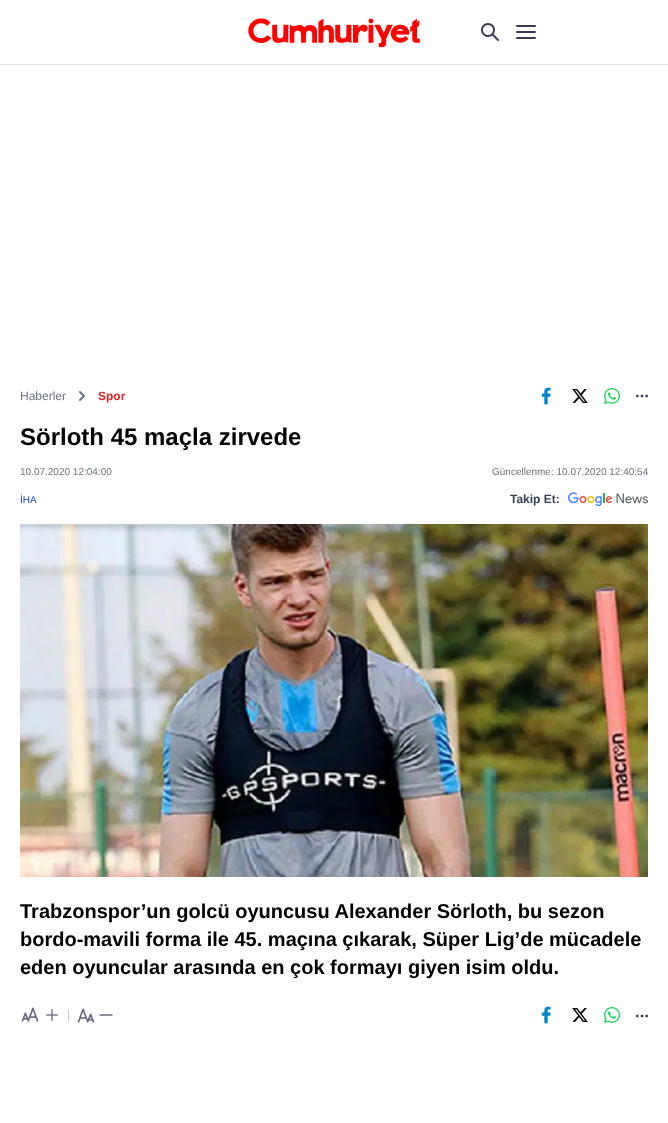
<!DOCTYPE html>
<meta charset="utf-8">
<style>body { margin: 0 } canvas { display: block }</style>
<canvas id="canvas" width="668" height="1123"></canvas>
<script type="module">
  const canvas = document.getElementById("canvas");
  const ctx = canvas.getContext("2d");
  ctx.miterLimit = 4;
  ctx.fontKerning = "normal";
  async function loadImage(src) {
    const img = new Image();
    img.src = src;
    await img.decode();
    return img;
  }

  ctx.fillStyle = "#ffffff";
  ctx.fillRect(0, 0, 668, 1123);
  ctx.fillStyle = "#e5e5ea";
  ctx.fillRect(0, 64, 668, 1);
  ctx.drawImage(await loadImage("img1.png"), 248, 18, 172, 30);
  ctx.drawImage(await loadImage("img2.png"), 481, 23, 18, 18);
  ctx.drawImage(await loadImage("img3.png"), 516, 25, 20, 14);
  ctx.font = "12px Liberation Sans";
  ctx.fillStyle = "#6b7280";
  ctx.fillText("Haberler", 20, 400);
  ctx.beginPath();
  ctx.moveTo(80, 400);
  ctx.lineTo(84, 396);
  ctx.lineTo(80, 392);
  ctx.strokeStyle = "#6b7280";
  ctx.lineWidth = 2;
  ctx.lineCap = "round";
  ctx.lineJoin = "round";
  ctx.stroke();
  ctx.font = "bold 12px Liberation Sans";
  ctx.fillStyle = "#dc2626";
  ctx.fillText("Spor", 98, 400);
  ctx.drawImage(await loadImage("img4.png"), 541, 387, 10, 18);
  ctx.drawImage(await loadImage("img5.png"), 572, 389, 16, 14);
  ctx.drawImage(await loadImage("img6.png"), 604, 388, 16, 16);
  ctx.drawImage(await loadImage("img7.png"), 636, 394, 12, 4);
  ctx.font = "bold 24px Liberation Sans";
  ctx.fillStyle = "#000000";
  ctx.fillText("Sörloth 45 maçla zirvede", 20, 445);
  ctx.font = "10px Liberation Sans";
  ctx.fillStyle = "#6b7280";
  ctx.fillText("10.07.2020 12:04:00", 20, 475);
  ctx.fillText("Güncellenme: 10.07.2020 12:40:54", 492, 475);
  ctx.fillStyle = "#1e40af";
  ctx.fillText("İHA", 20, 503);
  ctx.font = "bold 12px Liberation Sans";
  ctx.fillStyle = "#374151";
  ctx.fillText("Takip Et:", 510, 503);
  ctx.drawImage(await loadImage("img8.png"), 568, 492, 80, 15);
  ctx.drawImage(await loadImage("img9.png"), 20, 524, 628, 353);
  ctx.font = "bold 20px Liberation Sans";
  ctx.fillStyle = "#000000";
  ctx.fillText("Trabzonspor’un golcü oyuncusu Alexander Sörloth, bu sezon", 20, 918);
  ctx.fillText("bordo-mavili forma ile 45. maçına çıkarak, Süper Lig’de mücadele", 20, 946);
  ctx.fillText("eden oyuncular arasında en çok formayı giyen isim oldu.", 20, 974);
  ctx.drawImage(await loadImage("img10.png"), 21, 1007, 18, 15);
  ctx.drawImage(await loadImage("img11.png"), 46, 1009, 12, 12);
  ctx.fillStyle = "#c7c7cc";
  ctx.beginPath();
  ctx.roundRect(68, 1009, 1, 12, 0.5);
  ctx.fill();
  ctx.drawImage(await loadImage("img12.png"), 77, 1008, 18, 15);
  ctx.beginPath();
  ctx.moveTo(100, 1015);
  ctx.lineTo(112, 1015);
  ctx.strokeStyle = "#6b6b7d";
  ctx.lineWidth = 1.5;
  ctx.lineJoin = "miter";
  ctx.stroke();
  ctx.drawImage(await loadImage("img4.png"), 541, 1006, 10, 18);
  ctx.drawImage(await loadImage("img5.png"), 572, 1008, 16, 14);
  ctx.drawImage(await loadImage("img6.png"), 604, 1007, 16, 16);
  ctx.drawImage(await loadImage("img7.png"), 636, 1014, 12, 4);
</script>
